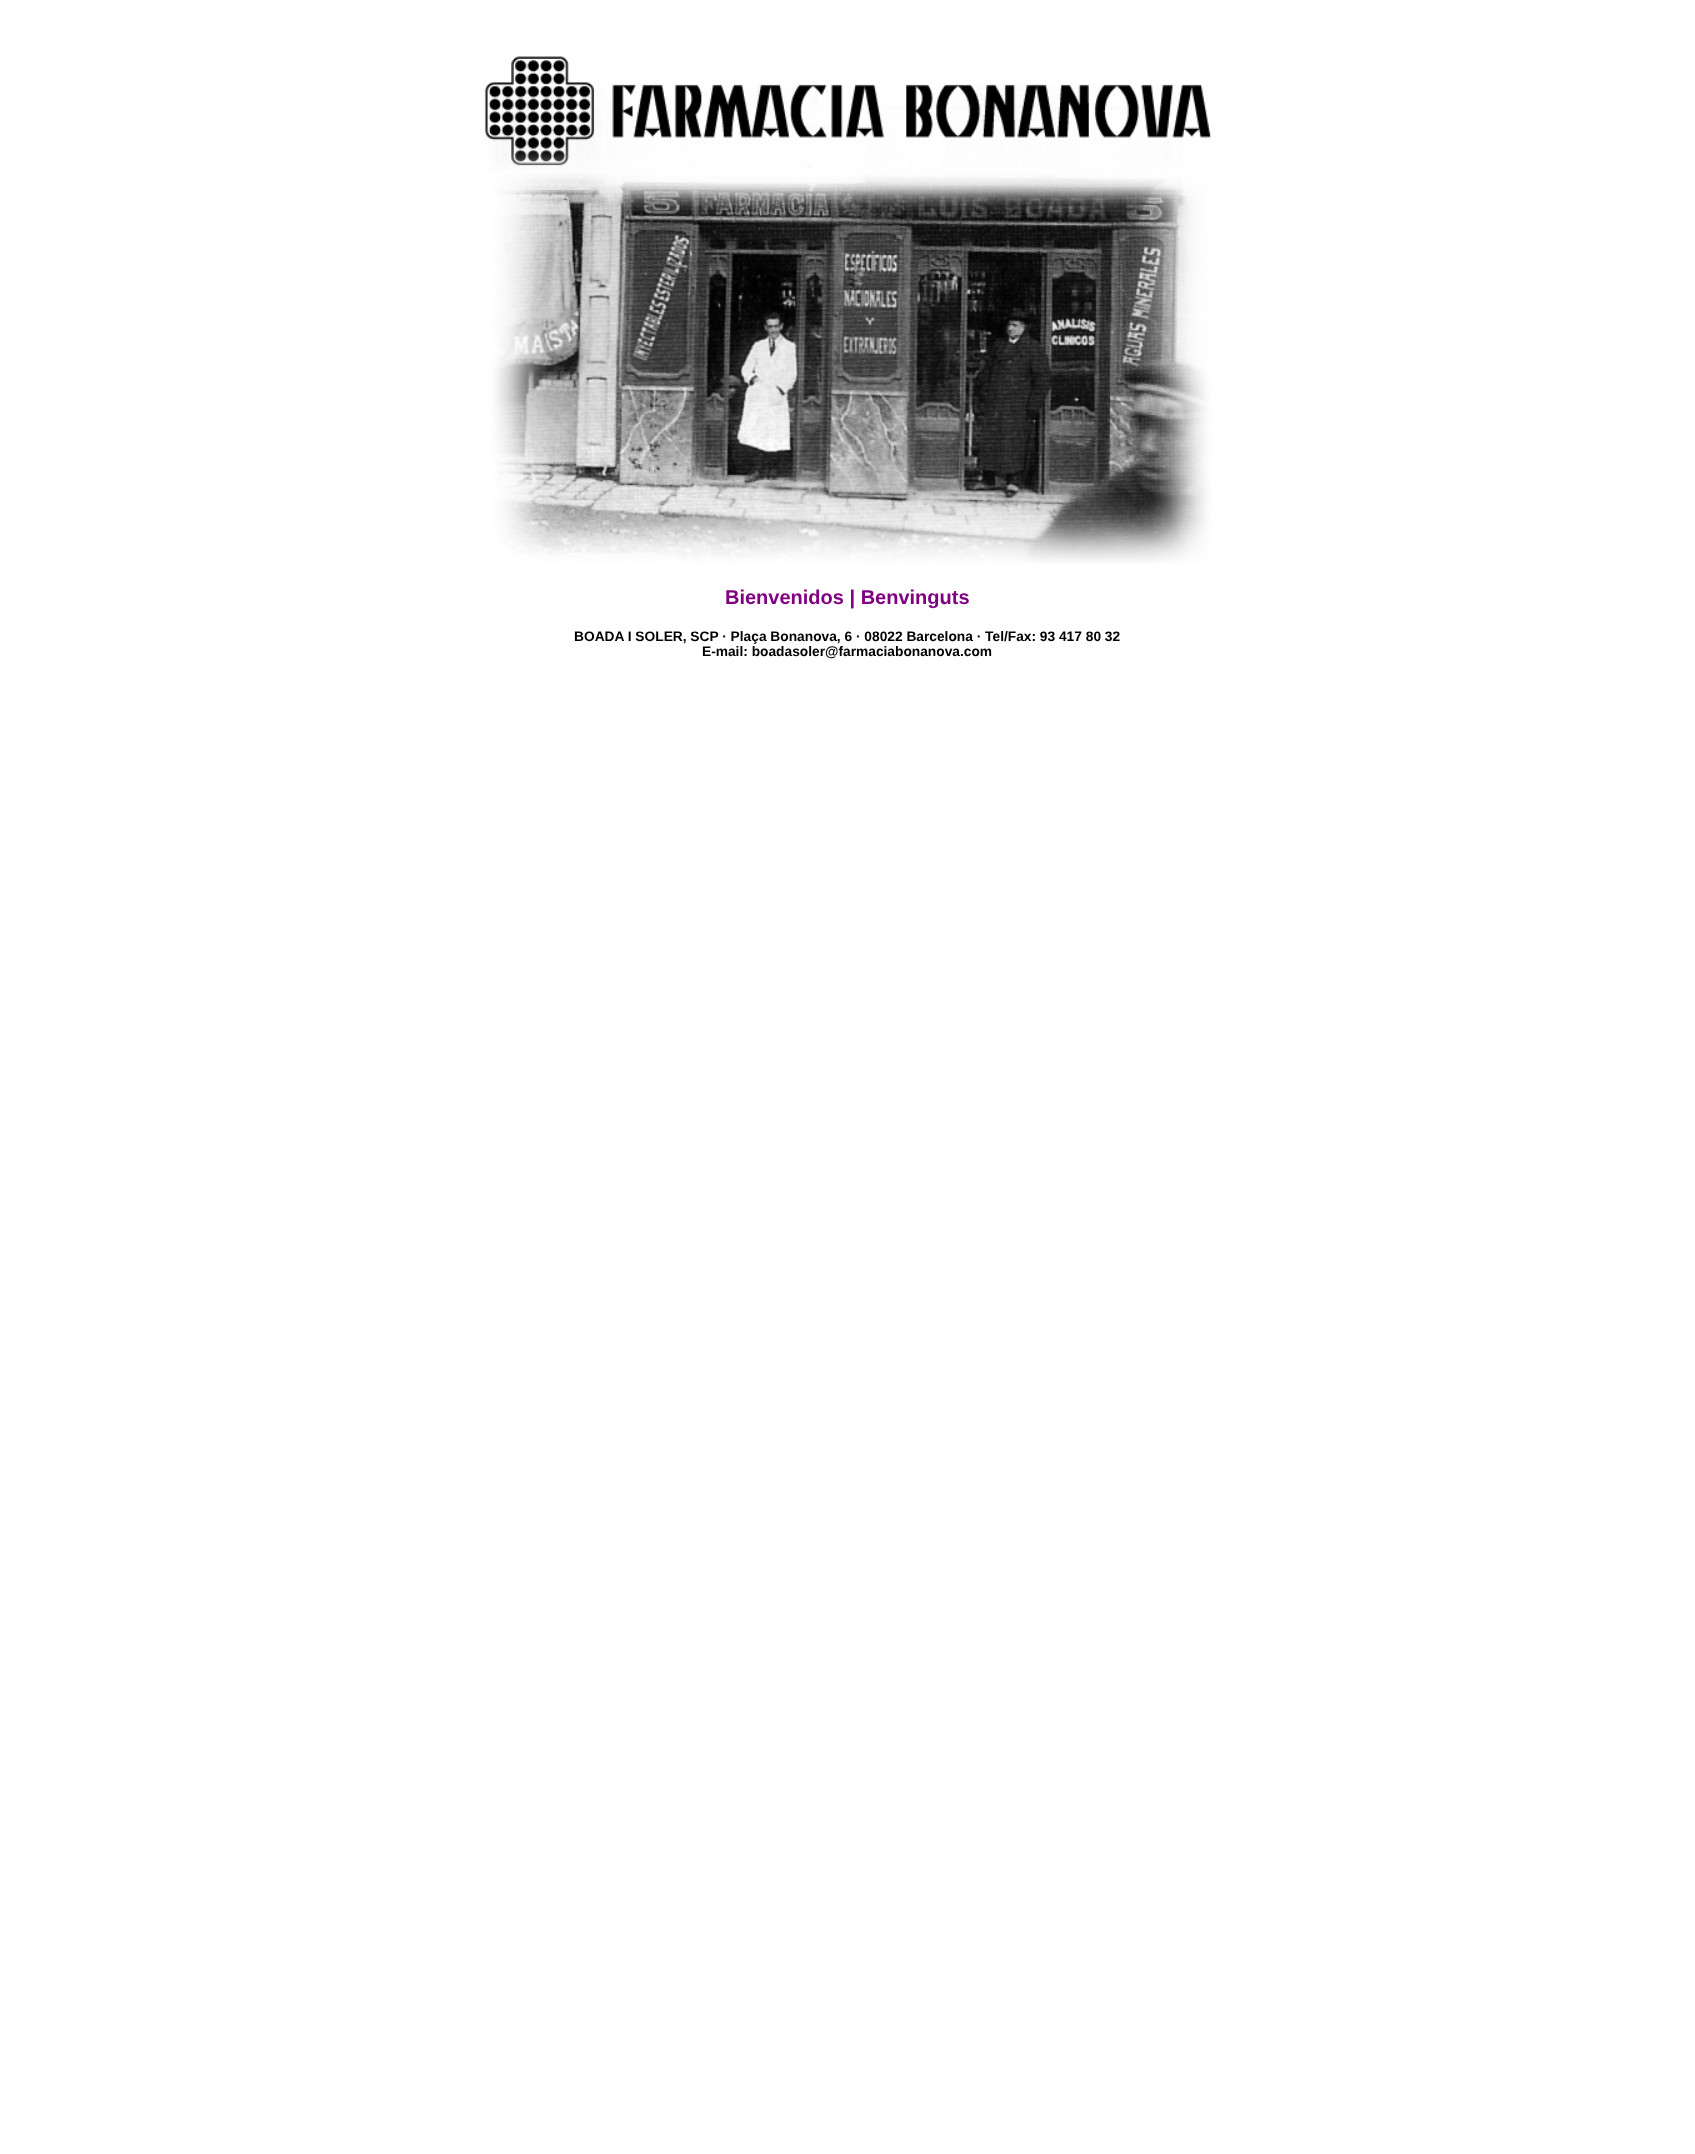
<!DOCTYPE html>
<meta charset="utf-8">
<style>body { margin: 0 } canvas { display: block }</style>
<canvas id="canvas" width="1695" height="2154"></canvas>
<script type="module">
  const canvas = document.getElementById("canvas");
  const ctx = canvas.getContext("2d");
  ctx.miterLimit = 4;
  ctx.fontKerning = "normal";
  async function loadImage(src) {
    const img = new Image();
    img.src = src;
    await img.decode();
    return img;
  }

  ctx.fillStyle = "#ffffff";
  ctx.fillRect(0, 0, 1695, 2154);
  ctx.drawImage(await loadImage("img1.png"), 484, 56, 728, 508);
  ctx.font = "bold 20px Liberation Sans";
  ctx.fillStyle = "#800080";
  ctx.fillText("Bienvenidos | Benvinguts", 725, 604);
  ctx.font = "bold 13.75px Liberation Sans";
  ctx.fillStyle = "#000000";
  ctx.fillText("BOADA I SOLER, SCP · Plaça Bonanova, 6 · 08022 Barcelona · Tel/Fax: 93 417 80 32", 574, 641);
  ctx.fillText("E-mail: boadasoler@farmaciabonanova.com", 702, 656);
</script>
